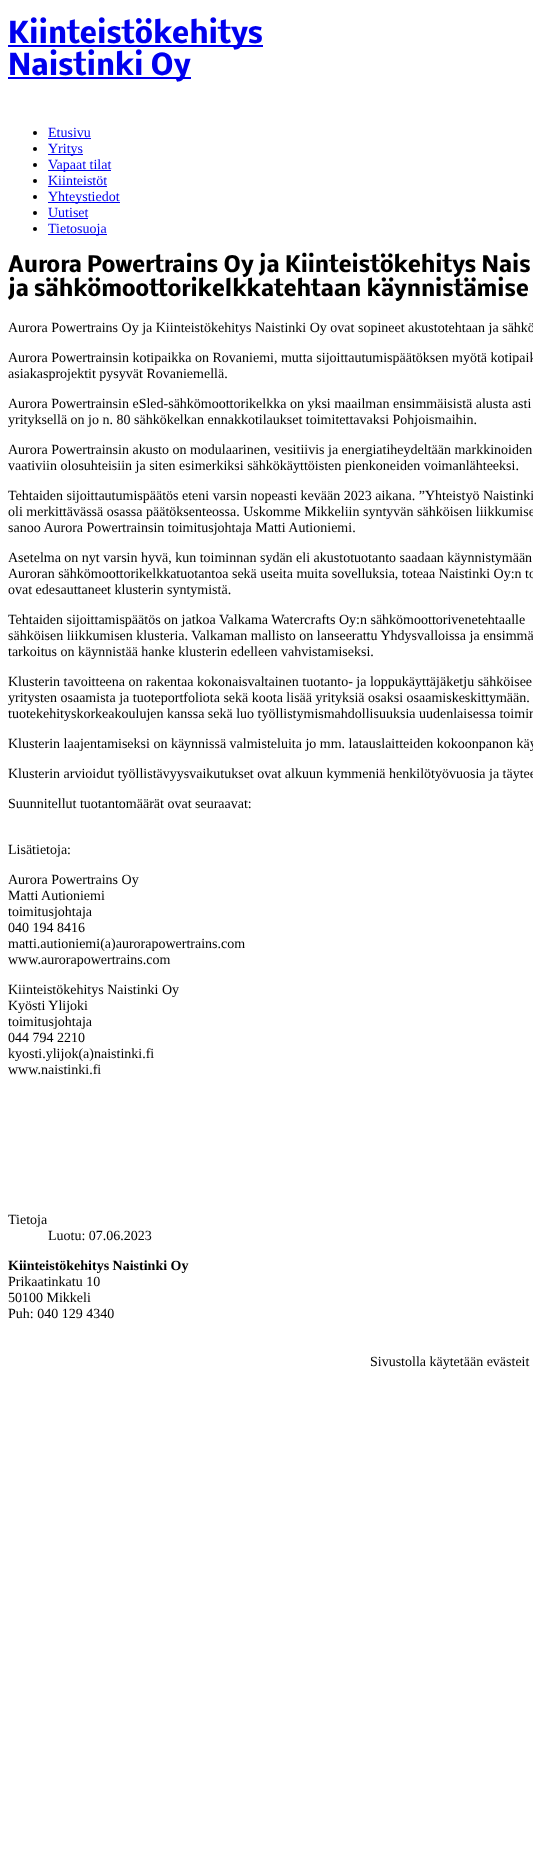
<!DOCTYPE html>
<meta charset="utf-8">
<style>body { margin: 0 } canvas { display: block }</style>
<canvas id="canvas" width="533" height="1873"></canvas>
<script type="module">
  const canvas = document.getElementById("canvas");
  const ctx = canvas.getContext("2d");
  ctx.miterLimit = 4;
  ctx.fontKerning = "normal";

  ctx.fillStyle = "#ffffff";
  ctx.fillRect(0, 0, 533, 1873);
  ctx.fillStyle = "#0000ee";
  ctx.fillRect(8, 45, 255, 2);
  ctx.font = "bold 28px Nobile";
  ctx.fillText("Kiinteistökehitys", 8, 43);
  ctx.fillRect(8, 77, 183, 2);
  ctx.fillText("Naistinki Oy", 8, 75);
  ctx.fillStyle = "#000000";
  ctx.beginPath();
  ctx.arc(35, 133, 2, 0, Math.PI * 2);
  ctx.fill();
  ctx.font = "14px Liberation Serif";
  ctx.fillStyle = "#0000ee";
  ctx.fillText("Etusivu", 48, 137);
  ctx.fillRect(48, 138, 43, 1);
  ctx.fillStyle = "#000000";
  ctx.beginPath();
  ctx.arc(35, 149, 2, 0, Math.PI * 2);
  ctx.fill();
  ctx.fillStyle = "#0000ee";
  ctx.fillRect(48, 154, 35, 1);
  ctx.fillText("Yritys", 48, 153);
  ctx.fillStyle = "#000000";
  ctx.beginPath();
  ctx.arc(35, 165, 2, 0, Math.PI * 2);
  ctx.fill();
  ctx.fillStyle = "#0000ee";
  ctx.fillRect(48, 170, 63, 1);
  ctx.fillText("Vapaat tilat", 48, 169);
  ctx.fillStyle = "#000000";
  ctx.beginPath();
  ctx.arc(35, 181, 2, 0, Math.PI * 2);
  ctx.fill();
  ctx.fillStyle = "#0000ee";
  ctx.fillText("Kiinteistöt", 48, 185);
  ctx.fillRect(48, 186, 59, 1);
  ctx.fillStyle = "#000000";
  ctx.beginPath();
  ctx.arc(35, 197, 2, 0, Math.PI * 2);
  ctx.fill();
  ctx.fillStyle = "#0000ee";
  ctx.fillRect(48, 202, 72, 1);
  ctx.fillText("Yhteystiedot", 48, 201);
  ctx.fillStyle = "#000000";
  ctx.beginPath();
  ctx.arc(35, 213, 2, 0, Math.PI * 2);
  ctx.fill();
  ctx.fillStyle = "#0000ee";
  ctx.fillText("Uutiset", 48, 217);
  ctx.fillRect(48, 218, 40, 1);
  ctx.fillStyle = "#000000";
  ctx.beginPath();
  ctx.arc(35, 229, 2, 0, Math.PI * 2);
  ctx.fill();
  ctx.fillStyle = "#0000ee";
  ctx.fillRect(48, 234, 59, 1);
  ctx.fillText("Tietosuoja", 48, 233);
  ctx.font = "bold 21px Nobile";
  ctx.fillStyle = "#000000";
  ctx.fillText("Aurora Powertrains Oy ja Kiinteistökehitys Nais", 8, 272);
  ctx.fillText("ja sähkömoottorikelkkatehtaan käynnistämise", 8, 296);
  ctx.font = "14px Liberation Serif";
  ctx.fillText("Aurora Powertrains Oy ja Kiinteistökehitys Naistinki Oy ovat sopineet akustotehtaan ja sähkö", 8, 332);
  ctx.fillText("Aurora Powertrainsin kotipaikka on Rovaniemi, mutta sijoittautumispäätöksen myötä kotipaik", 8, 362);
  ctx.fillText("asiakasprojektit pysyvät Rovaniemellä.", 8, 378);
  ctx.fillText("Aurora Powertrainsin eSled-sähkömoottorikelkka on yksi maailman ensimmäisistä alusta asti", 8, 408);
  ctx.fillText("yrityksellä on jo n. 80 sähkökelkan ennakkotilaukset toimitettavaksi Pohjoismaihin.", 8, 424);
  ctx.fillText("Aurora Powertrainsin akusto on modulaarinen, vesitiivis ja energiatiheydeltään markkinoiden", 8, 454);
  ctx.fillText("vaativiin olosuhteisiin ja siten esimerkiksi sähkökäyttöisten pienkoneiden voimanlähteeksi.", 8, 470);
  ctx.fillText("Tehtaiden sijoittautumispäätös eteni varsin nopeasti kevään 2023 aikana. ”Yhteistyö Naistinki", 8, 500);
  ctx.fillText("oli merkittävässä osassa päätöksenteossa. Uskomme Mikkeliin syntyvän sähköisen liikkumise", 8, 516);
  ctx.fillText("sanoo Aurora Powertrainsin toimitusjohtaja Matti Autioniemi.", 8, 532);
  ctx.fillText("Asetelma on nyt varsin hyvä, kun toiminnan sydän eli akustotuotanto saadaan käynnistymään", 8, 562);
  ctx.fillText("Auroran sähkömoottorikelkkatuotantoa sekä useita muita sovelluksia, toteaa Naistinki Oy:n to", 8, 578);
  ctx.fillText("ovat edesauttaneet klusterin syntymistä.", 8, 594);
  ctx.fillText("Tehtaiden sijoittamispäätös on jatkoa Valkama Watercrafts Oy:n sähkömoottorivenetehtaalle", 8, 624);
  ctx.fillText("sähköisen liikkumisen klusteria. Valkaman mallisto on lanseerattu Yhdysvalloissa ja ensimmä", 8, 640);
  ctx.fillText("tarkoitus on käynnistää hanke klusterin edelleen vahvistamiseksi.", 8, 656);
  ctx.fillText("Klusterin tavoitteena on rakentaa kokonaisvaltainen tuotanto- ja loppukäyttäjäketju sähköisee", 8, 686);
  ctx.fillText("yritysten osaamista ja tuoteportfoliota sekä koota lisää yrityksiä osaksi osaamiskeskittymään.", 8, 702);
  ctx.fillText("tuotekehityskorkeakoulujen kanssa sekä luo työllistymismahdollisuuksia uudenlaisessa toimin", 8, 718);
  ctx.fillText("Klusterin laajentamiseksi on käynnissä valmisteluita jo mm. latauslaitteiden kokoonpanon käy", 8, 748);
  ctx.fillText("Klusterin arvioidut työllistävyysvaikutukset ovat alkuun kymmeniä henkilötyövuosia ja täytee", 8, 778);
  ctx.fillText("Suunnitellut tuotantomäärät ovat seuraavat:", 8, 808);
  ctx.fillText("Lisätietoja:", 8, 854);
  ctx.fillText("Aurora Powertrains Oy", 8, 884);
  ctx.fillText("Matti Autioniemi", 8, 900);
  ctx.fillText("toimitusjohtaja", 8, 916);
  ctx.fillText("040 194 8416", 8, 932);
  ctx.fillText("matti.autioniemi(a)aurorapowertrains.com", 8, 948);
  ctx.fillText("www.aurorapowertrains.com", 8, 964);
  ctx.fillText("Kiinteistökehitys Naistinki Oy", 8, 994);
  ctx.fillText("Kyösti Ylijoki", 8, 1010);
  ctx.fillText("toimitusjohtaja", 8, 1026);
  ctx.fillText("044 794 2210", 8, 1042);
  ctx.fillText("kyosti.ylijok(a)naistinki.fi", 8, 1058);
  ctx.fillText("www.naistinki.fi", 8, 1074);
  ctx.fillText("Tietoja", 8, 1224);
  ctx.fillText("Luotu: 07.06.2023", 48, 1240);
  ctx.font = "bold 14px Liberation Serif";
  ctx.fillText("Kiinteistökehitys Naistinki Oy", 8, 1270);
  ctx.font = "14px Liberation Serif";
  ctx.fillText("Prikaatinkatu 10", 8, 1286);
  ctx.fillText("50100 Mikkeli", 8, 1302);
  ctx.fillText("Puh: 040 129 4340", 8, 1318);
  ctx.fillText("Sivustolla käytetään evästeit", 370, 1366);
</script>
